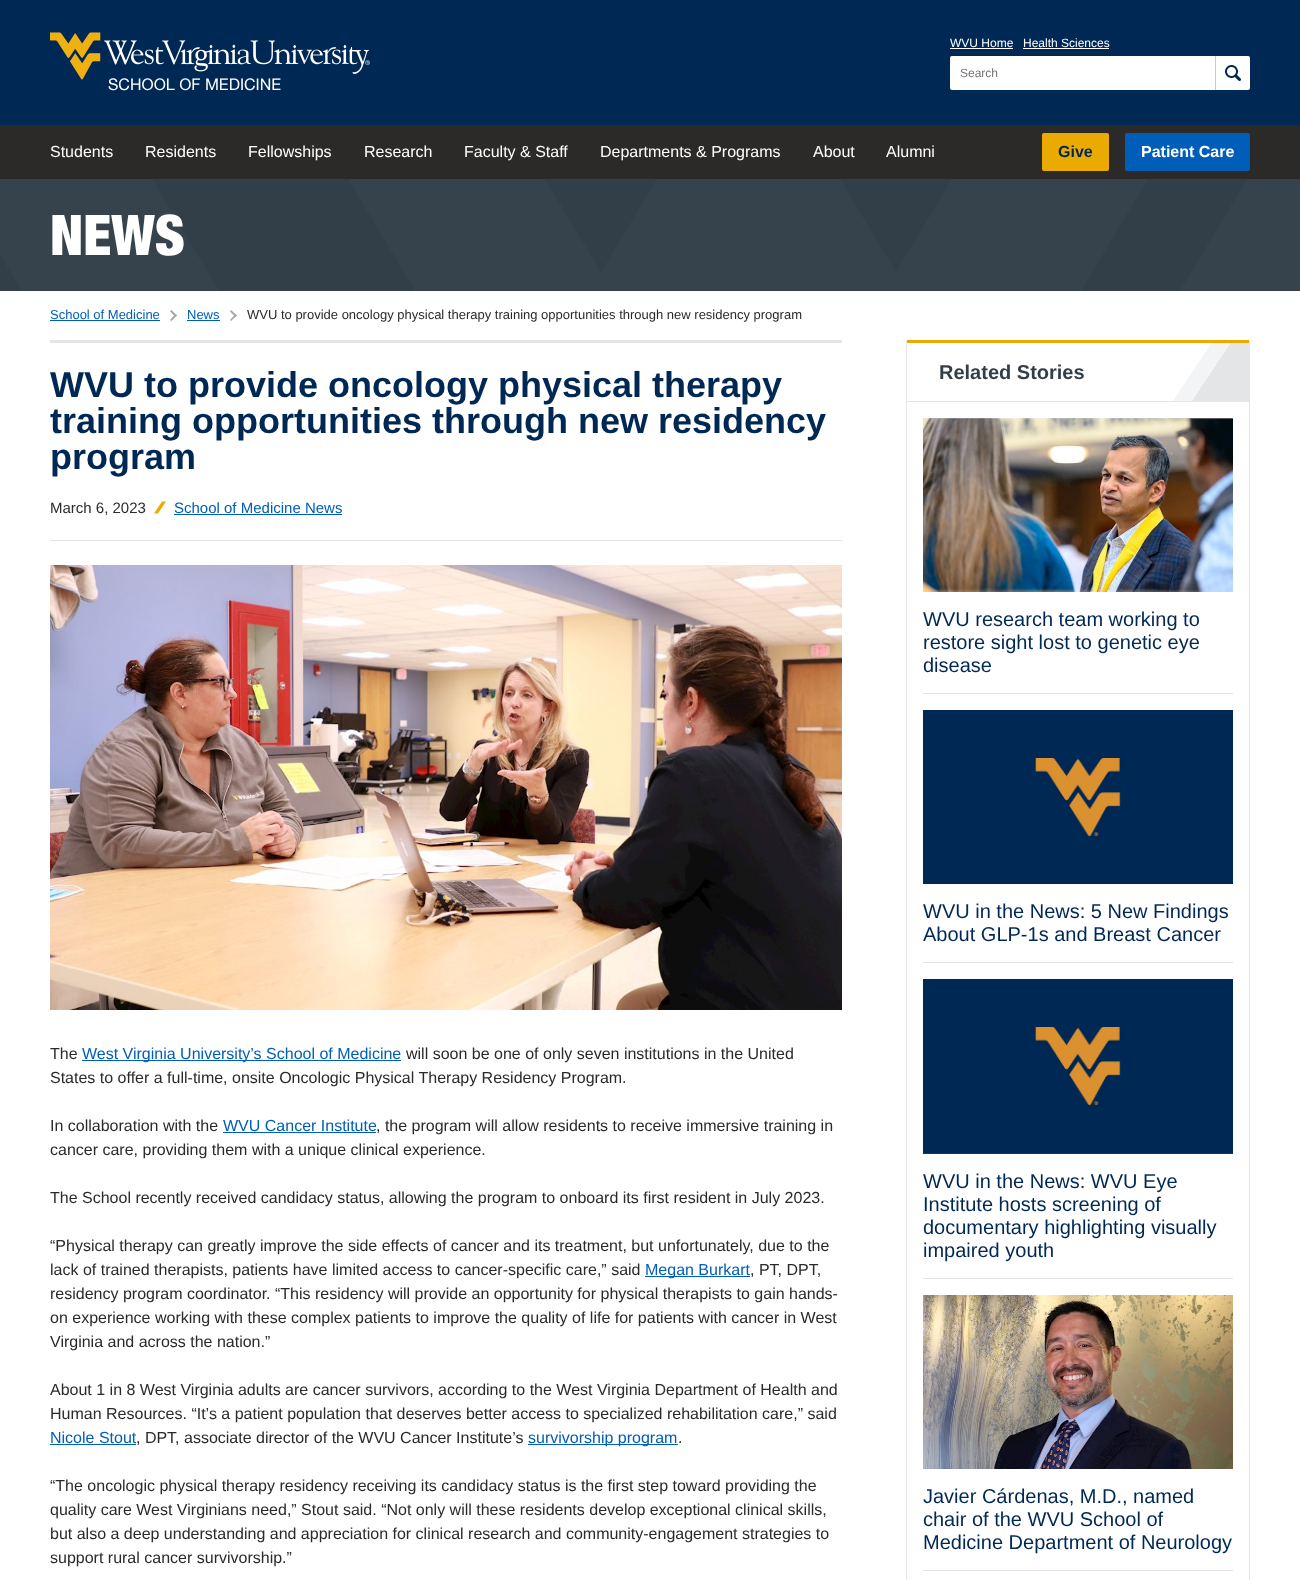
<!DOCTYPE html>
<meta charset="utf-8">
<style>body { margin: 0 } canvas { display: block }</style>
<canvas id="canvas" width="1300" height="1580"></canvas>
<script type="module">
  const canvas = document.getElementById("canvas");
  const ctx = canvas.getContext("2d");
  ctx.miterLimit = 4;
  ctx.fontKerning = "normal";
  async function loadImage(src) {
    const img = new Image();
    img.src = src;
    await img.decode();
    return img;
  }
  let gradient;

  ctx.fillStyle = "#ffffff";
  ctx.fillRect(0, 0, 1300, 1580);
  ctx.fillStyle = "#002855";
  ctx.fillRect(0, 0, 1300, 125);
  ctx.font = "12px Liberation Sans";
  ctx.fillStyle = "#ffffff";
  ctx.fillText("WVU Home", 950, 47);
  ctx.fillRect(950, 48, 63, 1);
  ctx.fillText("Health Sciences", 1023, 47);
  ctx.fillRect(1023, 48, 86, 1);
  ctx.beginPath();
  ctx.roundRect(950, 56, 265, 34, [2, 0, 0, 2]);
  ctx.fill();
  ctx.fillStyle = "#757575";
  ctx.fillText("Search", 960, 77);
  ctx.fillStyle = "#ffffff";
  ctx.beginPath();
  ctx.roundRect(1215, 56, 35, 34, [0, 2, 2, 0]);
  ctx.fill();
  ctx.fillStyle = "#c2cbd6";
  ctx.fillRect(1215, 56, 1, 34);
  ctx.drawImage(await loadImage("img1.png"), 1225, 65, 16, 16);
  ctx.font = "16px 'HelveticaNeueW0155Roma'";
  ctx.fillStyle = "#ffffff";
  ctx.fillText("SCHOOL OF MEDICINE", 108, 90);
  ctx.drawImage(await loadImage("img2.png"), 50, 32, 320, 48);
  ctx.fillStyle = "#2c2a29";
  ctx.fillRect(0, 125, 1300, 54);
  ctx.font = "16px Liberation Sans";
  ctx.fillStyle = "#ffffff";
  ctx.fillText("Students", 50, 157);
  ctx.fillText("Residents", 145, 157);
  ctx.fillText("Fellowships", 248, 157);
  ctx.fillText("Research", 364, 157);
  ctx.fillText("Faculty & Staff", 464, 157);
  ctx.fillText("Departments & Programs", 600, 157);
  ctx.fillText("About", 813, 157);
  ctx.fillText("Alumni", 886, 157);
  ctx.fillStyle = "#eaaa00";
  ctx.beginPath();
  ctx.roundRect(1042, 133, 67, 38, 2);
  ctx.fill();
  ctx.font = "bold 16px Liberation Sans";
  ctx.fillStyle = "#002855";
  ctx.fillText("Give", 1058, 157);
  ctx.fillStyle = "#005eb8";
  ctx.beginPath();
  ctx.roundRect(1125, 133, 125, 38, 2);
  ctx.fill();
  ctx.fillStyle = "#ffffff";
  ctx.fillText("Patient Care", 1141, 157);
  ctx.fillStyle = "#333f48";
  ctx.fillRect(0, 179, 1247, 112);
  ctx.save();
  ctx.beginPath();
  ctx.rect(0, 179, 1300, 112);
  ctx.clip();
  ctx.fillStyle = "#37434c";
  ctx.beginPath();
  ctx.moveTo(-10, 565);
  ctx.lineTo(269, 1030);
  ctx.lineTo(73, 1030);
  ctx.lineTo(-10, 893);
  ctx.closePath();
  ctx.moveTo(-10, 169);
  ctx.lineTo(-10, 238);
  ctx.lineTo(466, 1030);
  ctx.lineTo(663, 1030);
  ctx.lineTo(146, 169);
  ctx.closePath();
  ctx.moveTo(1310, 729);
  ctx.lineTo(1129, 1030);
  ctx.lineTo(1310, 1030);
  ctx.closePath();
  ctx.moveTo(1253, 169);
  ctx.lineTo(896, 763);
  ctx.lineTo(699, 436);
  ctx.lineTo(748, 354);
  ctx.lineTo(896, 600);
  ctx.lineTo(1154, 169);
  ctx.lineTo(958, 169);
  ctx.lineTo(896, 272);
  ctx.lineTo(834, 169);
  ctx.lineTo(663, 169);
  ctx.lineTo(601, 272);
  ctx.lineTo(539, 169);
  ctx.lineTo(342, 169);
  ctx.lineTo(859, 1030);
  ctx.lineTo(932, 1030);
  ctx.lineTo(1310, 402);
  ctx.lineTo(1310, 169);
  ctx.closePath();
  ctx.fill();
  ctx.restore();
  ctx.font = "900 56px 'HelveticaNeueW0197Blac'";
  ctx.fillStyle = "#ffffff";
  ctx.fillText("NEWS", 50, 255);
  ctx.font = "13px Liberation Sans";
  ctx.fillStyle = "#005eb8";
  ctx.fillText("School of Medicine", 50, 319);
  ctx.fillRect(50, 320, 110, 1);
  ctx.fillStyle = "#a2aaad";
  ctx.beginPath();
  ctx.moveTo(171.5, 310);
  ctx.lineTo(177, 315.5);
  ctx.lineTo(175.5, 317);
  ctx.lineTo(170, 311.5);
  ctx.closePath();
  ctx.fill();
  ctx.beginPath();
  ctx.moveTo(175.5, 314);
  ctx.lineTo(177, 315.5);
  ctx.lineTo(171.5, 321);
  ctx.lineTo(170, 320);
  ctx.closePath();
  ctx.fill();
  ctx.fillStyle = "#005eb8";
  ctx.fillText("News", 187, 319);
  ctx.fillRect(187, 320, 33, 1);
  ctx.fillStyle = "#a2aaad";
  ctx.beginPath();
  ctx.moveTo(231, 310);
  ctx.lineTo(237, 315.5);
  ctx.lineTo(235.5, 317);
  ctx.lineTo(230, 311.5);
  ctx.closePath();
  ctx.fill();
  ctx.beginPath();
  ctx.moveTo(235.5, 314);
  ctx.lineTo(237, 315.5);
  ctx.lineTo(231, 321);
  ctx.lineTo(230, 320);
  ctx.closePath();
  ctx.fill();
  ctx.fillStyle = "#2c2a29";
  ctx.fillText("WVU to provide oncology physical therapy training opportunities through new residency program", 247, 319);
  ctx.fillStyle = "#e3e5e6";
  ctx.fillRect(50, 340, 792, 3);
  ctx.fillRect(50, 540, 792, 1);
  ctx.font = "bold 36px Liberation Sans";
  ctx.fillStyle = "#002855";
  ctx.fillText("WVU to provide oncology physical therapy", 50, 397);
  ctx.fillText("training opportunities through new residency", 50, 433);
  ctx.fillText("program", 50, 469);
  ctx.font = "15px Liberation Sans";
  ctx.fillStyle = "#2c2a29";
  ctx.fillText("March 6, 2023", 50, 513);
  ctx.fillStyle = "#eaaa00";
  ctx.beginPath();
  ctx.moveTo(162, 501.5);
  ctx.lineTo(166, 501.5);
  ctx.lineTo(158, 513.5);
  ctx.lineTo(154, 513.5);
  ctx.closePath();
  ctx.fill();
  ctx.fillStyle = "#005eb8";
  ctx.fillText("School of Medicine News", 174, 513);
  ctx.fillRect(174, 514, 168, 1);
  ctx.drawImage(await loadImage("img3.png"), 50, 565, 792, 445);
  ctx.font = "16px Liberation Sans";
  ctx.fillStyle = "#2c2a29";
  ctx.fillText("The", 50, 1059);
  ctx.fillStyle = "#005eb8";
  ctx.fillRect(82, 1060, 319, 1);
  ctx.fillText("West Virginia University’s School of Medicine", 82, 1059);
  ctx.fillStyle = "#2c2a29";
  ctx.fillText("will soon be one of only seven institutions in the United", 406, 1059);
  ctx.fillText("States to offer a full-time, onsite Oncologic Physical Therapy Residency Program.", 50, 1083);
  ctx.fillText("In collaboration with the", 50, 1131);
  ctx.fillStyle = "#005eb8";
  ctx.fillText("WVU Cancer Institute", 223, 1131);
  ctx.fillRect(223, 1132, 153, 1);
  ctx.fillStyle = "#2c2a29";
  ctx.fillText(", the program will allow residents to receive immersive training in", 376, 1131);
  ctx.fillText("cancer care, providing them with a unique clinical experience.", 50, 1155);
  ctx.fillText("The School recently received candidacy status, allowing the program to onboard its first resident in July 2023.", 50, 1203);
  ctx.fillText("“Physical therapy can greatly improve the side effects of cancer and its treatment, but unfortunately, due to the", 50, 1251);
  ctx.fillText("lack of trained therapists, patients have limited access to cancer-specific care,” said", 50, 1275);
  ctx.fillStyle = "#005eb8";
  ctx.fillRect(645, 1276, 105, 1);
  ctx.fillText("Megan Burkart", 645, 1275);
  ctx.fillStyle = "#2c2a29";
  ctx.fillText(", PT, DPT,", 750, 1275);
  ctx.fillText("residency program coordinator. “This residency will provide an opportunity for physical therapists to gain hands-", 50, 1299);
  ctx.fillText("on experience working with these complex patients to improve the quality of life for patients with cancer in West", 50, 1323);
  ctx.fillText("Virginia and across the nation.”", 50, 1347);
  ctx.fillText("About 1 in 8 West Virginia adults are cancer survivors, according to the West Virginia Department of Health and", 50, 1395);
  ctx.fillText("Human Resources. “It’s a patient population that deserves better access to specialized rehabilitation care,” said", 50, 1419);
  ctx.fillStyle = "#005eb8";
  ctx.fillText("Nicole Stout", 50, 1443);
  ctx.fillRect(50, 1444, 86, 1);
  ctx.fillStyle = "#2c2a29";
  ctx.fillText(", DPT, associate director of the WVU Cancer Institute’s", 136, 1443);
  ctx.fillStyle = "#005eb8";
  ctx.fillRect(528, 1444, 150, 1);
  ctx.fillText("survivorship program", 528, 1443);
  ctx.fillStyle = "#2c2a29";
  ctx.fillText(".", 678, 1443);
  ctx.fillText("“The oncologic physical therapy residency receiving its candidacy status is the first step toward providing the", 50, 1491);
  ctx.fillText("quality care West Virginians need,” Stout said. “Not only will these residents develop exceptional clinical skills,", 50, 1515);
  ctx.fillText("but also a deep understanding and appreciation for clinical research and community-engagement strategies to", 50, 1539);
  ctx.fillText("support rural cancer survivorship.”", 50, 1563);
  ctx.fillStyle = "#e3e5e6";
  ctx.fillRect(1249, 340, 1, 1240);
  ctx.fillRect(906, 340, 1, 1240);
  gradient = ctx.createLinearGradient(946, 284, 1210, 460);
  gradient.addColorStop(0, "#ffffff");
  gradient.addColorStop(0.8, "#ffffff");
  gradient.addColorStop(0.8, "#f3f4f5");
  gradient.addColorStop(0.85, "#f3f4f5");
  gradient.addColorStop(0.85, "#e3e5e6");
  gradient.addColorStop(1, "#e3e5e6");
  ctx.fillStyle = gradient;
  ctx.fillRect(1173, 343, 76, 58);
  ctx.fillStyle = "#eaaa00";
  ctx.fillRect(907, 340, 342, 3);
  ctx.fillStyle = "#e3e5e6";
  ctx.fillRect(907, 401, 342, 1);
  ctx.font = "bold 20px Liberation Sans";
  ctx.fillStyle = "#333f48";
  ctx.fillText("Related Stories", 939, 379);
  ctx.fillStyle = "#e3e5e6";
  ctx.fillRect(923, 693, 310, 1);
  ctx.drawImage(await loadImage("img4.png"), 923, 418, 310, 174);
  ctx.font = "20px Liberation Sans";
  ctx.fillStyle = "#002855";
  ctx.fillText("WVU research team working to", 923, 626);
  ctx.fillText("restore sight lost to genetic eye", 923, 649);
  ctx.fillText("disease", 923, 672);
  ctx.fillStyle = "#e3e5e6";
  ctx.fillRect(923, 962, 310, 1);
  ctx.drawImage(await loadImage("img5.png"), 923, 710, 310, 174);
  ctx.fillStyle = "#002855";
  ctx.fillText("WVU in the News: 5 New Findings", 923, 918);
  ctx.fillText("About GLP-1s and Breast Cancer", 923, 941);
  ctx.fillStyle = "#e3e5e6";
  ctx.fillRect(923, 1278, 310, 1);
  ctx.drawImage(await loadImage("img6.png"), 923, 979, 310, 175);
  ctx.fillStyle = "#002855";
  ctx.fillText("WVU in the News: WVU Eye", 923, 1188);
  ctx.fillText("Institute hosts screening of", 923, 1211);
  ctx.fillText("documentary highlighting visually", 923, 1234);
  ctx.fillText("impaired youth", 923, 1257);
  ctx.fillStyle = "#e3e5e6";
  ctx.fillRect(923, 1570, 310, 1);
  ctx.drawImage(await loadImage("img7.png"), 923, 1295, 310, 174);
  ctx.fillStyle = "#002855";
  ctx.fillText("Javier Cárdenas, M.D., named", 923, 1503);
  ctx.fillText("chair of the WVU School of", 923, 1526);
  ctx.fillText("Medicine Department of Neurology", 923, 1549);
</script>
